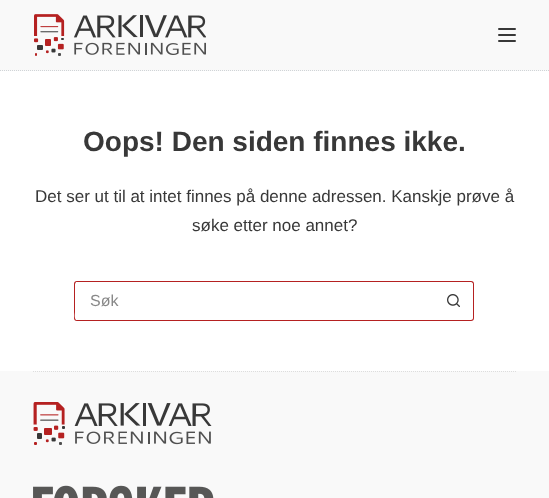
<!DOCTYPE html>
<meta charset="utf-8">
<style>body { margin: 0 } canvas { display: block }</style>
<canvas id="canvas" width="549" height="498"></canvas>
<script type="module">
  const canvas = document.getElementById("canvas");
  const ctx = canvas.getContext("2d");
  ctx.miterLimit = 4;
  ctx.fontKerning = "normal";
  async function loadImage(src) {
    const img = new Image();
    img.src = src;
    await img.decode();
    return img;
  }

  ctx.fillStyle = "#ffffff";
  ctx.fillRect(0, 0, 549, 498);
  ctx.fillStyle = "#f9f9f9";
  ctx.fillRect(0, 0, 549, 71);
  ctx.beginPath();
  ctx.moveTo(0, 70.5);
  ctx.lineTo(549, 70.5);
  ctx.strokeStyle = "#d0d4d7";
  ctx.setLineDash([1, 1]);
  ctx.stroke();
  ctx.drawImage(await loadImage("img1.png"), 34, 14, 172, 42);
  ctx.fillStyle = "#383838";
  ctx.beginPath();
  ctx.roundRect(498, 28, 18, 2, 1);
  ctx.fill();
  ctx.beginPath();
  ctx.roundRect(498, 34, 18, 2, 1);
  ctx.fill();
  ctx.beginPath();
  ctx.roundRect(498, 40, 18, 2, 1);
  ctx.fill();
  ctx.font = "bold 28px Liberation Sans";
  ctx.fillText("Oops! Den siden finnes ikke.", 83, 151);
  ctx.font = "17px Liberation Sans";
  ctx.fillText("Det ser ut til at intet finnes på denne adressen. Kanskje prøve å", 35, 202);
  ctx.fillText("søke etter noe annet?", 192, 231);
  ctx.fillStyle = "#b52121";
  ctx.beginPath();
  ctx.moveTo(77, 281);
  ctx.lineTo(434, 281);
  ctx.lineTo(434, 321);
  ctx.lineTo(77, 321);
  ctx.bezierCurveTo(75, 321, 74, 320, 74, 318);
  ctx.lineTo(74, 284);
  ctx.bezierCurveTo(74, 282, 75, 281, 77, 281);
  ctx.closePath();
  ctx.moveTo(77, 282);
  ctx.lineTo(434, 282);
  ctx.lineTo(434, 320);
  ctx.lineTo(76, 320);
  ctx.bezierCurveTo(74, 318, 75, 313, 75, 312);
  ctx.lineTo(75, 284);
  ctx.lineTo(76, 282);
  ctx.closePath();
  ctx.fill("evenodd");
  ctx.font = "16px Liberation Sans";
  ctx.fillStyle = "#888888";
  ctx.fillText("Søk", 90, 306);
  ctx.fillStyle = "#b52121";
  ctx.beginPath();
  ctx.moveTo(434, 281);
  ctx.lineTo(471, 281);
  ctx.bezierCurveTo(473, 281, 474, 282, 474, 284);
  ctx.lineTo(474, 318);
  ctx.bezierCurveTo(474, 320, 473, 321, 471, 321);
  ctx.lineTo(434, 321);
  ctx.closePath();
  ctx.moveTo(434, 282);
  ctx.lineTo(471, 282);
  ctx.bezierCurveTo(472, 282, 473, 283, 473, 284);
  ctx.lineTo(473, 318);
  ctx.bezierCurveTo(473, 319, 472, 320, 471, 320);
  ctx.lineTo(434, 320);
  ctx.closePath();
  ctx.fill("evenodd");
  ctx.drawImage(await loadImage("img2.png"), 447, 294, 13, 13);
  ctx.fillStyle = "#f9f9f9";
  ctx.fillRect(0, 371, 549, 127);
  ctx.beginPath();
  ctx.moveTo(33, 371.5);
  ctx.lineTo(516, 371.5);
  ctx.strokeStyle = "#dddddd";
  ctx.stroke();
  ctx.drawImage(await loadImage("img3.png"), 33, 402, 179, 43);
  ctx.drawImage(await loadImage("img4.png"), 33, 485, 181, 13);
</script>
